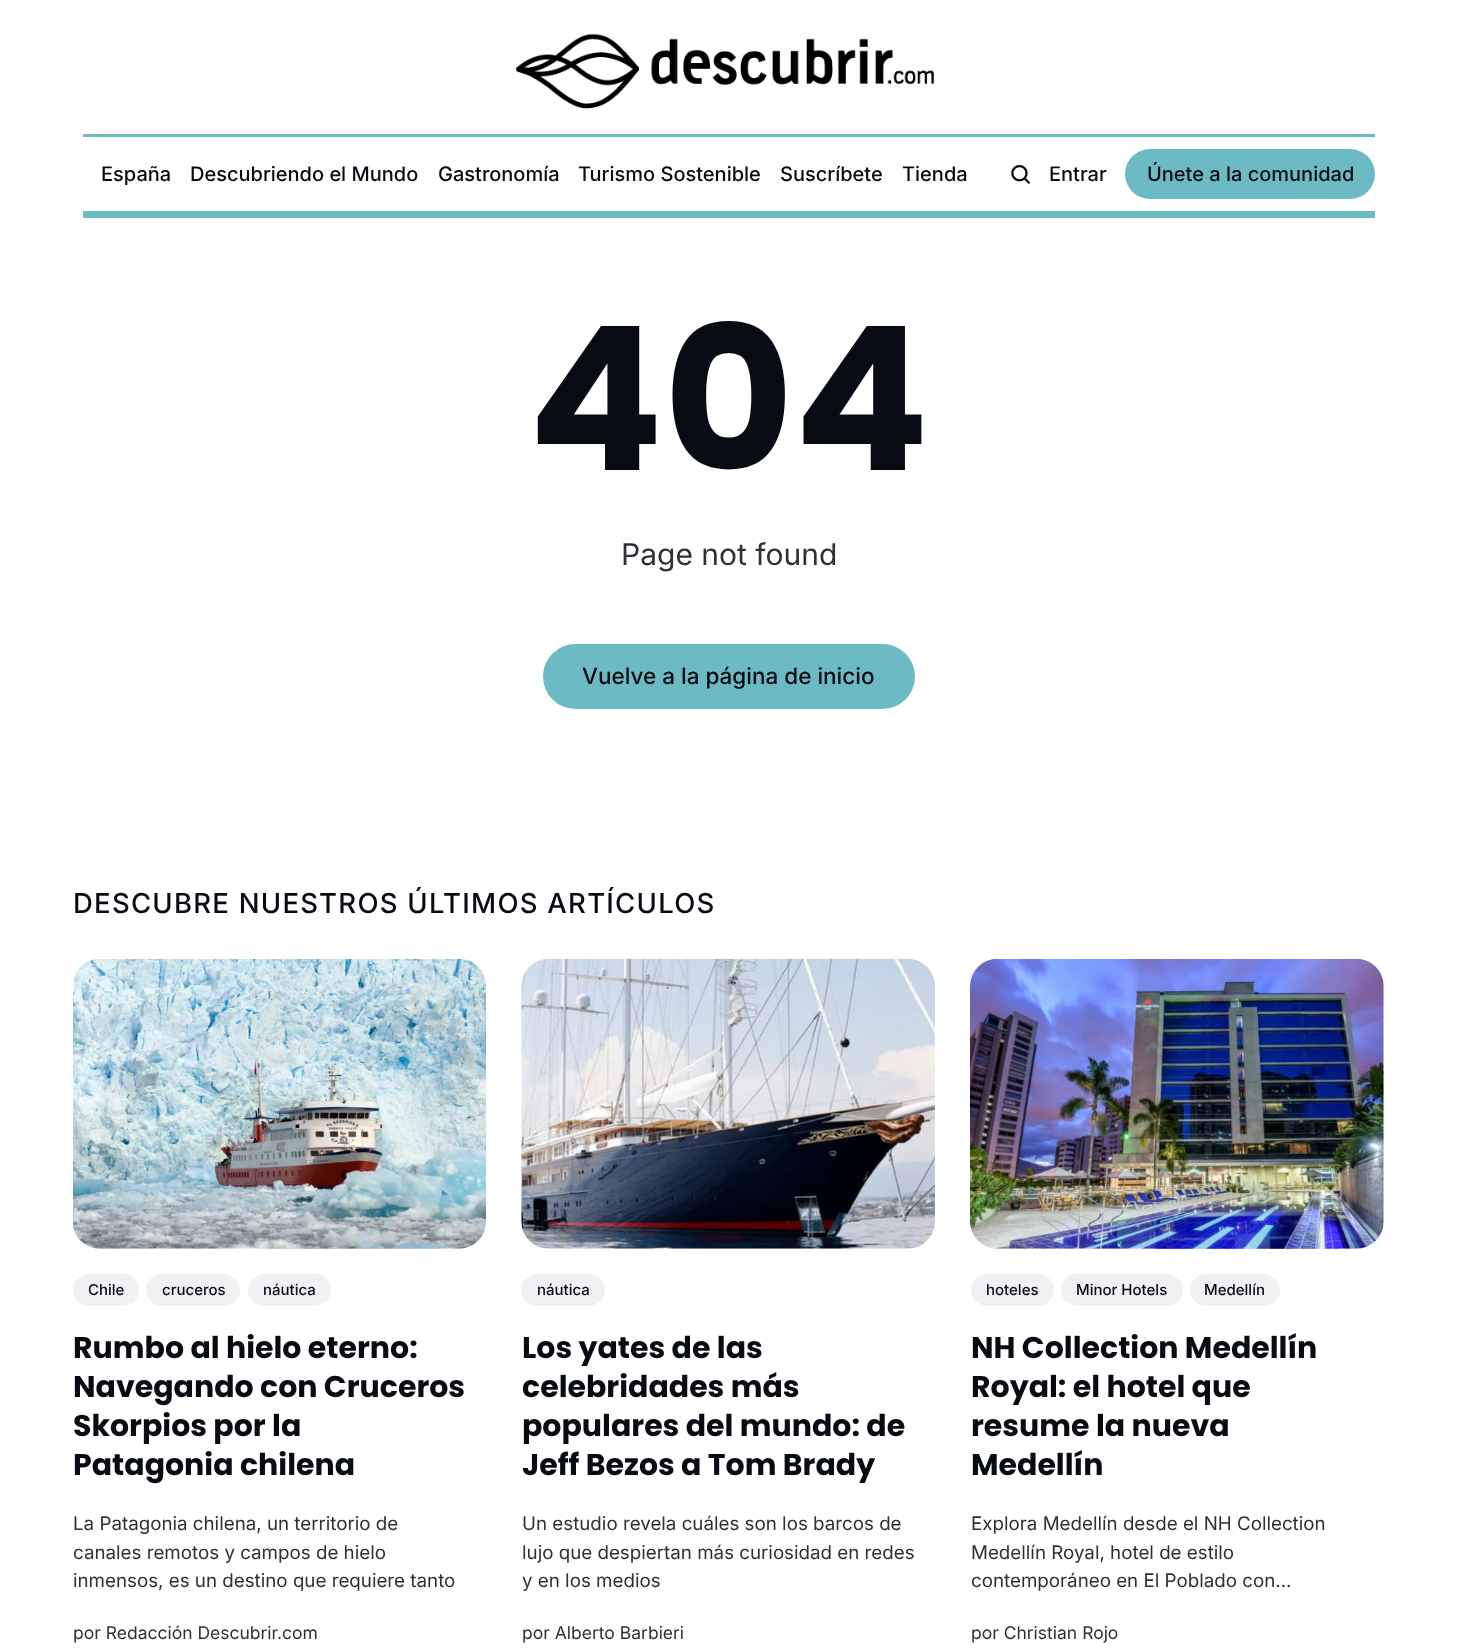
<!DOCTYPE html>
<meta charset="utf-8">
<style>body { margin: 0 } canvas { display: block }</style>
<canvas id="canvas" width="1457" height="1649"></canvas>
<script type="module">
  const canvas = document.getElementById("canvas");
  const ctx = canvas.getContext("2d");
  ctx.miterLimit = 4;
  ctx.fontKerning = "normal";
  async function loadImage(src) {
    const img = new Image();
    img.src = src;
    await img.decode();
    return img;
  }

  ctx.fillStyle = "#ffffff";
  ctx.fillRect(0, 0, 1457, 1649);
  ctx.drawImage(await loadImage("img1.png"), 516, 33, 418, 76);
  ctx.fillStyle = "#6bbac4";
  ctx.fillRect(83, 134, 1292, 3);
  ctx.fillRect(83, 211, 1292, 7);
  ctx.font = "500 20px Inter";
  ctx.fillStyle = "#080b12";
  ctx.fillText("España", 101, 181);
  ctx.fillText("Descubriendo el Mundo", 190, 181);
  ctx.fillText("Gastronomía", 438, 181);
  ctx.fillText("Turismo Sostenible", 578, 181);
  ctx.fillText("Suscríbete", 780, 181);
  ctx.fillText("Tienda", 902, 181);
  ctx.drawImage(await loadImage("img2.png"), 1011, 165, 19, 19);
  ctx.fillText("Entrar", 1049, 181);
  ctx.fillStyle = "#6bbac4";
  ctx.beginPath();
  ctx.roundRect(1125, 149, 250, 50, 25);
  ctx.fill();
  ctx.fillStyle = "#080b12";
  ctx.fillText("Únete a la comunidad", 1147, 181);
  ctx.font = "bold 200px Poppins";
  ctx.fillText("404", 528, 470);
  ctx.font = "30px Inter";
  ctx.fillStyle = "#2d3036";
  ctx.fillText("Page not found", 621, 565);
  ctx.fillStyle = "#6bbac4";
  ctx.beginPath();
  ctx.roundRect(543, 644, 372, 65, 32.5);
  ctx.fill();
  ctx.font = "500 22.5px Inter";
  ctx.fillStyle = "#080b12";
  ctx.fillText("Vuelve a la página de inicio", 582, 684);
  ctx.letterSpacing = "1.25px";
  ctx.font = "500 27.5px Inter";
  ctx.fillText("DESCUBRE NUESTROS ÚLTIMOS ARTÍCULOS", 73, 913);
  ctx.drawImage(await loadImage("img3.png"), 73, 959, 414, 290);
  ctx.fillStyle = "#f1f1f3";
  ctx.beginPath();
  ctx.roundRect(73, 1274, 66, 32, 16);
  ctx.fill();
  ctx.letterSpacing = "0px";
  ctx.font = "500 15px Inter";
  ctx.fillStyle = "#080b12";
  ctx.fillText("Chile", 88, 1295);
  ctx.fillStyle = "#f1f1f3";
  ctx.beginPath();
  ctx.roundRect(146, 1274, 94, 32, 16);
  ctx.fill();
  ctx.fillStyle = "#080b12";
  ctx.fillText("cruceros", 162, 1295);
  ctx.fillStyle = "#f1f1f3";
  ctx.beginPath();
  ctx.roundRect(248, 1274, 83, 32, 16);
  ctx.fill();
  ctx.fillStyle = "#080b12";
  ctx.fillText("náutica", 263, 1295);
  ctx.font = "bold 30px Poppins";
  ctx.fillText("Rumbo al hielo eterno:", 73, 1358);
  ctx.fillText("Navegando con Cruceros", 73, 1397);
  ctx.fillText("Skorpios por la", 73, 1436);
  ctx.fillText("Patagonia chilena", 73, 1475);
  ctx.font = "18.75px Inter";
  ctx.fillStyle = "#2d3036";
  ctx.fillText("La Patagonia chilena, un territorio de", 73, 1530);
  ctx.fillText("canales remotos y campos de hielo", 73, 1559);
  ctx.fillText("inmensos, es un destino que requiere tanto", 73, 1587);
  ctx.font = "17.5px Inter";
  ctx.fillText("por Redacción Descubrir.com", 73, 1639);
  ctx.drawImage(await loadImage("img4.png"), 521, 958, 414, 291);
  ctx.fillStyle = "#f1f1f3";
  ctx.beginPath();
  ctx.roundRect(521, 1274, 84, 32, 16);
  ctx.fill();
  ctx.font = "500 15px Inter";
  ctx.fillStyle = "#080b12";
  ctx.fillText("náutica", 537, 1295);
  ctx.font = "bold 30px Poppins";
  ctx.fillText("Los yates de las", 522, 1358);
  ctx.fillText("celebridades más", 522, 1397);
  ctx.fillText("populares del mundo: de", 522, 1436);
  ctx.fillText("Jeff Bezos a Tom Brady", 522, 1475);
  ctx.font = "18.75px Inter";
  ctx.fillStyle = "#2d3036";
  ctx.fillText("Un estudio revela cuáles son los barcos de", 522, 1530);
  ctx.fillText("lujo que despiertan más curiosidad en redes", 522, 1559);
  ctx.fillText("y en los medios", 522, 1587);
  ctx.font = "17.5px Inter";
  ctx.fillText("por Alberto Barbieri", 522, 1639);
  ctx.drawImage(await loadImage("img5.png"), 970, 959, 414, 290);
  ctx.fillStyle = "#f1f1f3";
  ctx.beginPath();
  ctx.roundRect(971, 1274, 83, 32, 16);
  ctx.fill();
  ctx.font = "500 15px Inter";
  ctx.fillStyle = "#080b12";
  ctx.fillText("hoteles", 986, 1295);
  ctx.fillStyle = "#f1f1f3";
  ctx.beginPath();
  ctx.roundRect(1061, 1274, 122, 32, 16);
  ctx.fill();
  ctx.fillStyle = "#080b12";
  ctx.fillText("Minor Hotels", 1076, 1295);
  ctx.fillStyle = "#f1f1f3";
  ctx.beginPath();
  ctx.roundRect(1190, 1274, 90, 32, 16);
  ctx.fill();
  ctx.fillStyle = "#080b12";
  ctx.fillText("Medellín", 1204, 1295);
  ctx.font = "bold 30px Poppins";
  ctx.fillText("NH Collection Medellín", 971, 1358);
  ctx.fillText("Royal: el hotel que", 971, 1397);
  ctx.fillText("resume la nueva", 971, 1436);
  ctx.fillText("Medellín", 971, 1475);
  ctx.font = "18.75px Inter";
  ctx.fillStyle = "#2d3036";
  ctx.fillText("Explora Medellín desde el NH Collection", 971, 1530);
  ctx.fillText("Medellín Royal, hotel de estilo", 971, 1559);
  ctx.fillText("contemporáneo en El Poblado con…", 971, 1587);
  ctx.font = "17.5px Inter";
  ctx.fillText("por Christian Rojo", 971, 1639);
</script>
